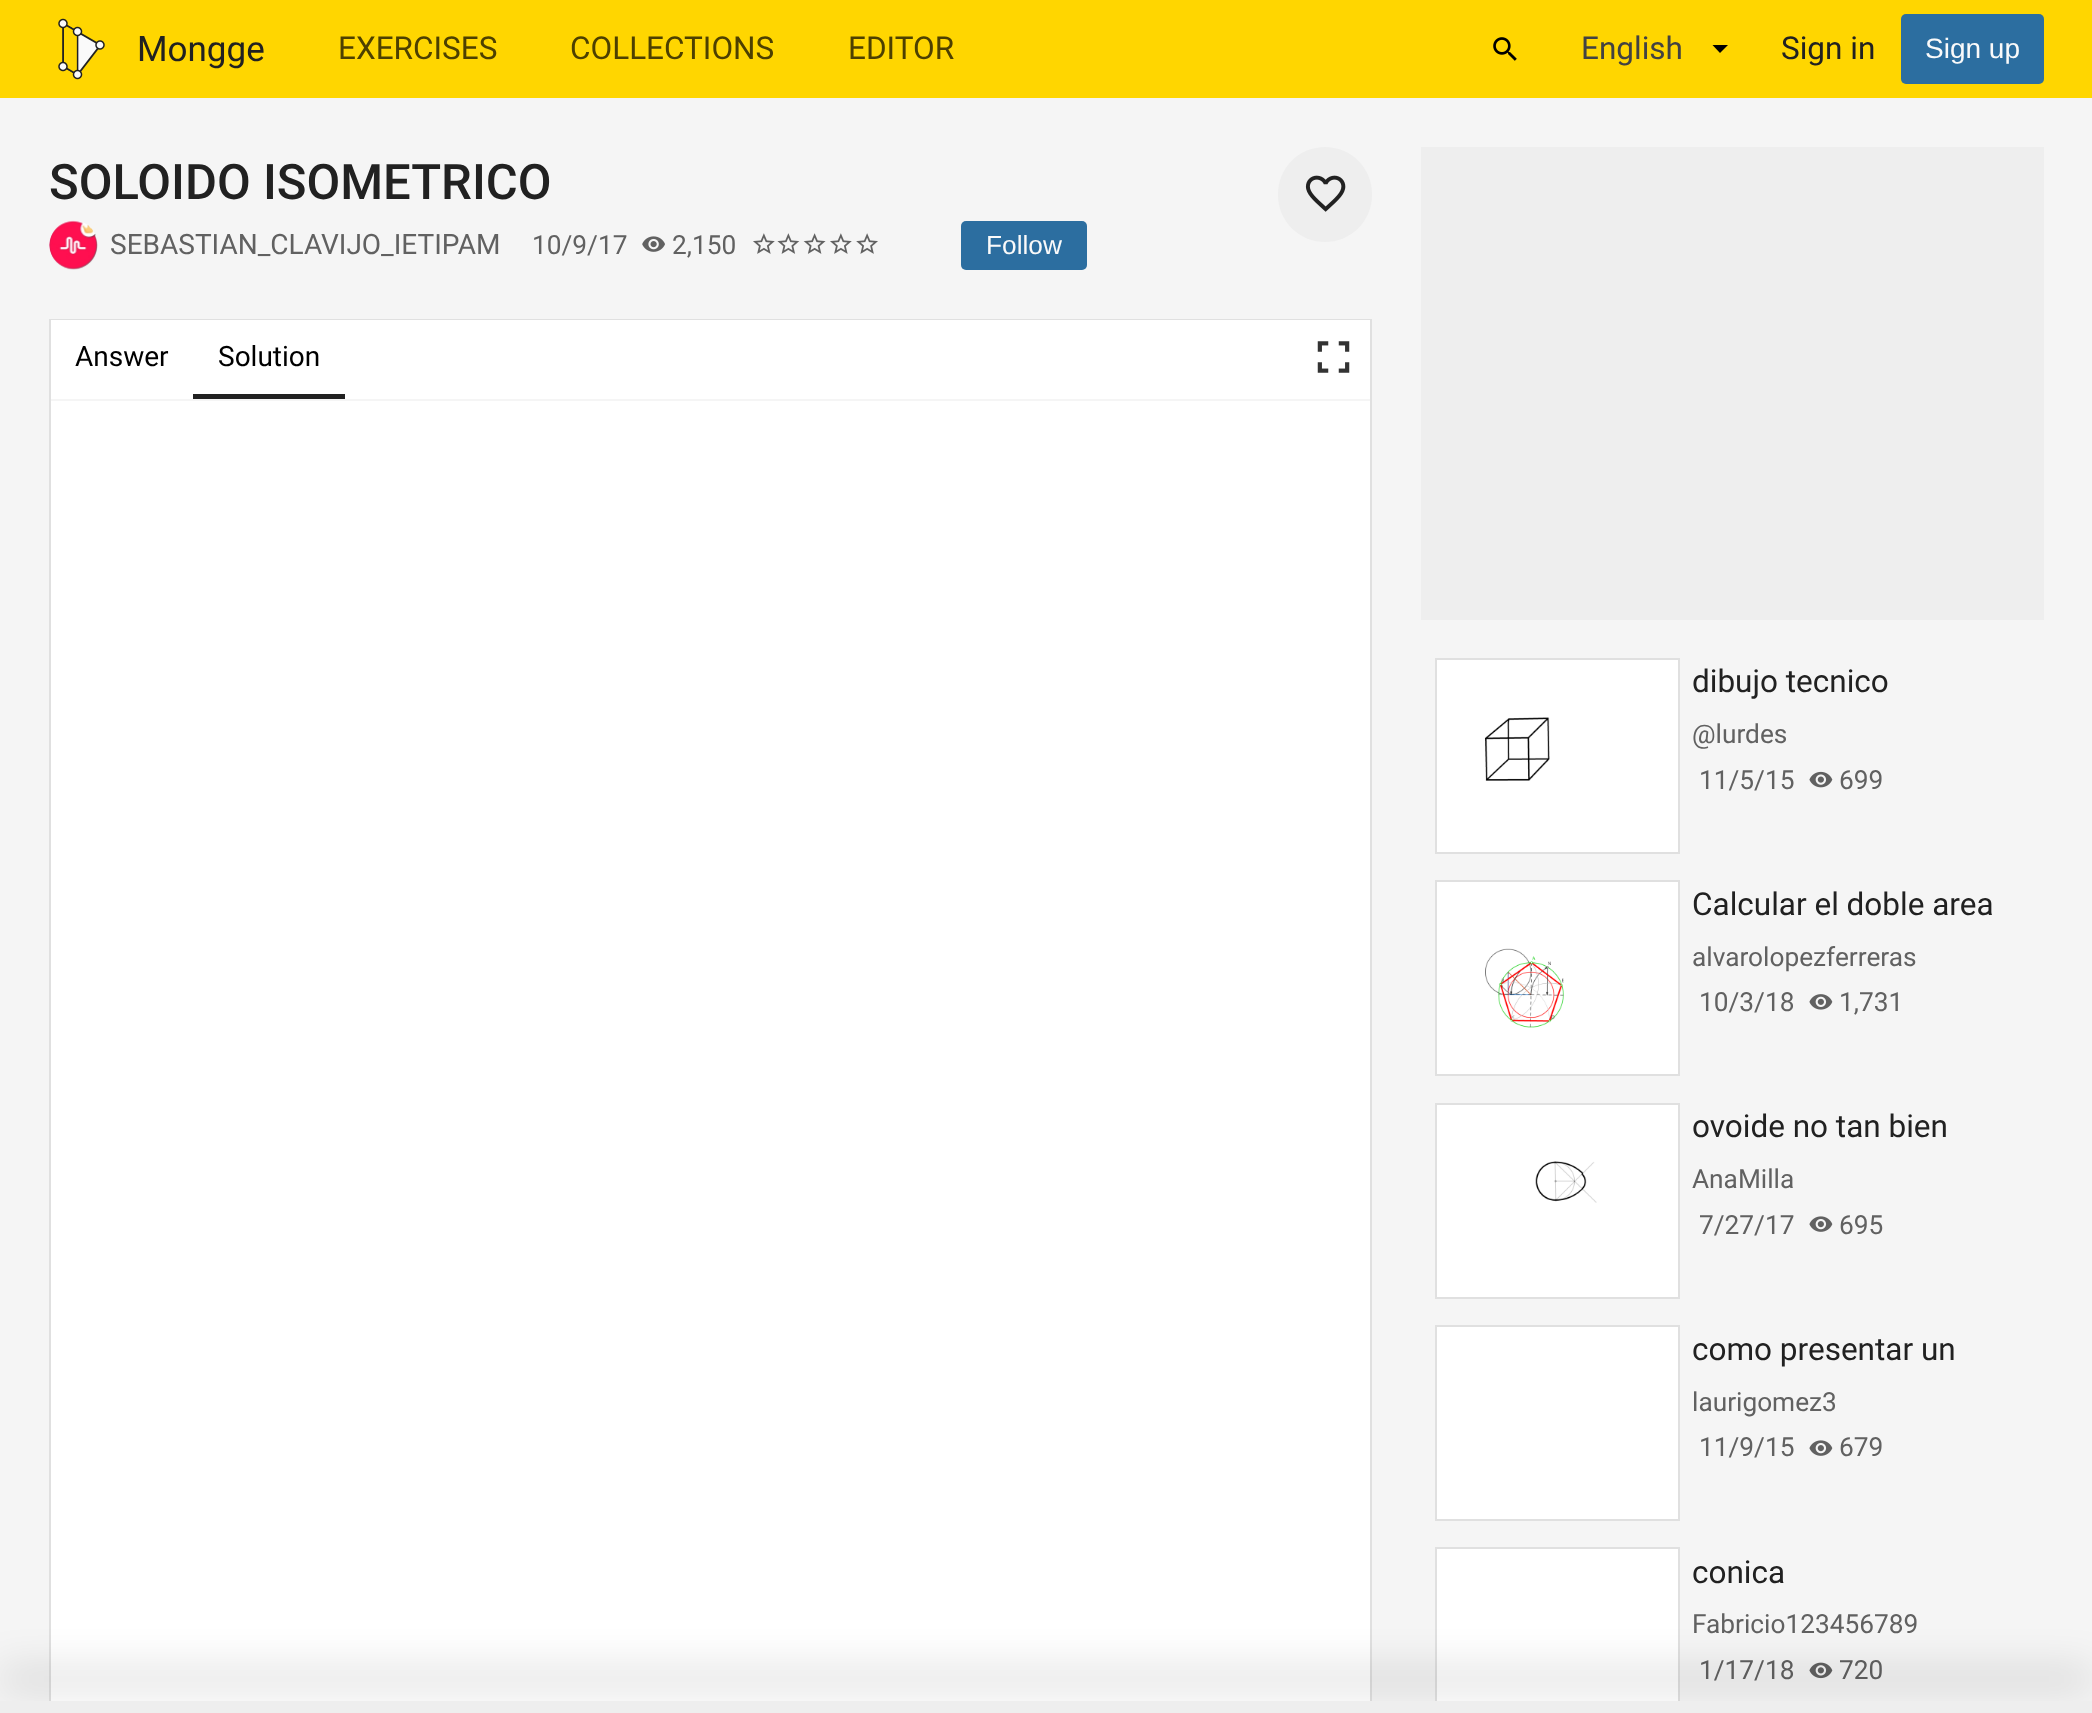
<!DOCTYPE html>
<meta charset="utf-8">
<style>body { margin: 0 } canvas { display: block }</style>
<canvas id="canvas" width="2092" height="1713"></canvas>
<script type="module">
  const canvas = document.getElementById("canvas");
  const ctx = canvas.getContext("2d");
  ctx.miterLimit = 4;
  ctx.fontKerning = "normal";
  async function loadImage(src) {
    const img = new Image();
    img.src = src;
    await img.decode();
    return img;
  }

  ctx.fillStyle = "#f5f5f5";
  ctx.fillRect(0, 0, 2092, 1713);
  ctx.fillStyle = "#ffd600";
  ctx.fillRect(0, 0, 2092, 98);
  ctx.drawImage(await loadImage("img1.png"), 58, 18, 47, 62);
  ctx.font = "35px Roboto";
  ctx.fillStyle = "#212121";
  ctx.fillText("Mongge", 137, 61);
  ctx.font = "31.5px Roboto";
  ctx.fillStyle = "#4d4000";
  ctx.fillText("EXERCISES", 338, 59);
  ctx.fillText("COLLECTIONS", 570, 59);
  ctx.fillText("EDITOR", 848, 59);
  ctx.drawImage(await loadImage("img2.png"), 1493, 37, 24, 24);
  ctx.fillStyle = "#424242";
  ctx.fillText("English", 1581, 59);
  ctx.fillStyle = "#000000";
  ctx.beginPath();
  ctx.moveTo(1712.5, 45);
  ctx.lineTo(1720, 53);
  ctx.lineTo(1728, 45);
  ctx.closePath();
  ctx.fill();
  ctx.fillStyle = "#212121";
  ctx.fillText("Sign in", 1781, 59);
  ctx.fillStyle = "#2c6ea0";
  ctx.beginPath();
  ctx.roundRect(1901, 14, 143, 70, 5);
  ctx.fill();
  ctx.font = "28px Liberation Sans";
  ctx.fillStyle = "#fafafa";
  ctx.fillText("Sign up", 1925, 58);
  ctx.font = "500 49px Roboto";
  ctx.fillStyle = "#212121";
  ctx.fillText("SOLOIDO ISOMETRICO", 49, 199);
  ctx.fillStyle = "#eeeeee";
  ctx.beginPath();
  ctx.roundRect(1278, 147, 94, 95, 47);
  ctx.fill();
  ctx.drawImage(await loadImage("img3.png"), 1305, 175, 41, 37);
  ctx.beginPath();
  ctx.arc(73.5, 245.5, 24.5, 0, Math.PI * 2);
  ctx.fill();
  ctx.drawImage(await loadImage("img4.png"), 49, 220, 49, 50);
  ctx.font = "28px Roboto";
  ctx.fillStyle = "#616161";
  ctx.fillText("SEBASTIAN_CLAVIJO_IETIPAM", 110, 254);
  ctx.font = "26.25px Roboto";
  ctx.fillText("10/9/17", 532, 254);
  ctx.drawImage(await loadImage("img5.png"), 642, 236, 23, 16);
  ctx.fillText("2,150", 672, 254);
  ctx.drawImage(await loadImage("img6.png"), 753, 233, 22, 21);
  ctx.drawImage(await loadImage("img7.png"), 777, 233, 23, 21);
  ctx.drawImage(await loadImage("img8.png"), 803, 233, 23, 21);
  ctx.drawImage(await loadImage("img6.png"), 830, 233, 22, 21);
  ctx.drawImage(await loadImage("img9.png"), 856, 233, 22, 21);
  ctx.fillStyle = "#2c6ea0";
  ctx.beginPath();
  ctx.roundRect(961, 221, 126, 49, 5);
  ctx.fill();
  ctx.font = "26.25px Liberation Sans";
  ctx.fillStyle = "#fafafa";
  ctx.fillText("Follow", 986, 254);
  ctx.strokeStyle = "#e0e0e0";
  ctx.lineWidth = 2;
  ctx.strokeRect(50, 320, 1321, 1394);
  ctx.fillStyle = "#ffffff";
  ctx.fillRect(51, 320, 1319, 1381);
  ctx.fillStyle = "#f5f5f5";
  ctx.fillRect(51, 399, 1319, 2);
  ctx.font = "28px Roboto";
  ctx.fillStyle = "#000000";
  ctx.fillText("Answer", 75, 366);
  ctx.fillStyle = "#212121";
  ctx.fillRect(193, 394, 152, 5);
  ctx.fillStyle = "#000000";
  ctx.fillText("Solution", 218, 366);
  ctx.drawImage(await loadImage("img10.png"), 1317, 341, 33, 32);
  ctx.fillStyle = "#eeeeee";
  ctx.fillRect(1421, 147, 623, 473);
  ctx.fillStyle = "#ffffff";
  ctx.beginPath();
  ctx.rect(1436, 659, 243, 194);
  ctx.fill();
  ctx.stroke();
  ctx.drawImage(await loadImage("img11.png"), 1484, 717, 66, 64);
  ctx.font = "31.5px Roboto";
  ctx.fillStyle = "#212121";
  ctx.fillText("dibujo tecnico", 1692, 692);
  ctx.font = "26.25px Roboto";
  ctx.fillStyle = "#616161";
  ctx.fillText("@lurdes", 1692, 743);
  ctx.fillText("11/5/15", 1699, 789);
  ctx.drawImage(await loadImage("img12.png"), 1809, 771, 24, 17);
  ctx.fillText("699", 1839, 789);
  ctx.fillStyle = "#ffffff";
  ctx.beginPath();
  ctx.rect(1436, 881, 243, 194);
  ctx.fill();
  ctx.stroke();
  ctx.drawImage(await loadImage("img13.png"), 1485, 948, 79, 80);
  ctx.font = "31.5px Roboto";
  ctx.fillStyle = "#212121";
  ctx.fillText("Calcular el doble area", 1692, 915);
  ctx.font = "26.25px Roboto";
  ctx.fillStyle = "#616161";
  ctx.fillText("alvarolopezferreras", 1692, 966);
  ctx.fillText("10/3/18", 1699, 1011);
  ctx.drawImage(await loadImage("img14.png"), 1809, 994, 24, 16);
  ctx.fillText("1,731", 1839, 1011);
  ctx.fillStyle = "#ffffff";
  ctx.beginPath();
  ctx.rect(1436, 1104, 243, 194);
  ctx.fill();
  ctx.stroke();
  ctx.drawImage(await loadImage("img15.png"), 1535, 1161, 62, 42);
  ctx.font = "31.5px Roboto";
  ctx.fillStyle = "#212121";
  ctx.fillText("ovoide no tan bien", 1692, 1137);
  ctx.font = "26.25px Roboto";
  ctx.fillStyle = "#616161";
  ctx.fillText("AnaMilla", 1692, 1188);
  ctx.fillText("7/27/17", 1699, 1234);
  ctx.drawImage(await loadImage("img16.png"), 1809, 1216, 24, 16);
  ctx.fillText("695", 1839, 1234);
  ctx.fillStyle = "#ffffff";
  ctx.beginPath();
  ctx.rect(1436, 1326, 243, 194);
  ctx.fill();
  ctx.stroke();
  ctx.font = "31.5px Roboto";
  ctx.fillStyle = "#212121";
  ctx.fillText("como presentar un", 1692, 1360);
  ctx.font = "26.25px Roboto";
  ctx.fillStyle = "#616161";
  ctx.fillText("laurigomez3", 1692, 1411);
  ctx.fillText("11/9/15", 1699, 1456);
  ctx.drawImage(await loadImage("img16.png"), 1809, 1440, 24, 16);
  ctx.fillText("679", 1839, 1456);
  ctx.fillStyle = "#ffffff";
  ctx.fillRect(1437, 1549, 241, 152);
  ctx.strokeRect(1436, 1548, 243, 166);
  ctx.font = "31.5px Roboto";
  ctx.fillStyle = "#212121";
  ctx.fillText("conica", 1692, 1583);
  ctx.font = "26.25px Roboto";
  ctx.fillStyle = "#616161";
  ctx.fillText("Fabricio123456789", 1692, 1633);
  ctx.fillText("1/17/18", 1699, 1679);
  ctx.drawImage(await loadImage("img17.png"), 1809, 1662, 24, 17);
  ctx.fillText("720", 1839, 1679);
  ctx.fillStyle = "rgba(0, 0, 0, 0.25)";
  ctx.filter = "blur(21px)";
  ctx.beginPath();
  ctx.rect(0, 1673, 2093, 12);
  ctx.fill();
  ctx.filter = "none";
  ctx.fillStyle = "#eeeeee";
  ctx.fillRect(0, 1701, 2092, 12);
</script>
